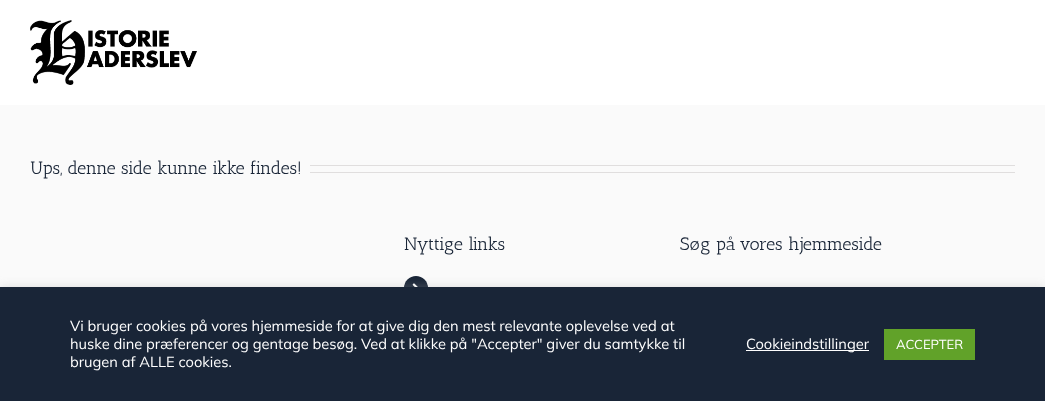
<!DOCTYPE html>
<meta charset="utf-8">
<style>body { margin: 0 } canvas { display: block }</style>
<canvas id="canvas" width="1045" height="401"></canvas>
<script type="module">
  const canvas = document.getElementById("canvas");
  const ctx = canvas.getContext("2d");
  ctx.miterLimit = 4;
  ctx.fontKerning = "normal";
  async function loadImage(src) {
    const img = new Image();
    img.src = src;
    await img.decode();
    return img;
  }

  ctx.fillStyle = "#fafafa";
  ctx.fillRect(0, 0, 1045, 401);
  ctx.fillStyle = "#ffffff";
  ctx.fillRect(0, 0, 1045, 105);
  ctx.drawImage(await loadImage("img1.png"), 30, 20, 167, 65);
  ctx.font = "18px Antic Slab";
  ctx.fillStyle = "#192537";
  ctx.fillText("Ups, denne side kunne ikke findes!", 30, 174);
  ctx.fillStyle = "#e0dede";
  ctx.fillRect(310, 165, 705, 1);
  ctx.fillRect(310, 172, 705, 1);
  ctx.fillStyle = "#192537";
  ctx.fillText("Nyttige links", 404, 250);
  ctx.beginPath();
  ctx.arc(416, 288, 12, 0, Math.PI * 2);
  ctx.fill();
  ctx.drawImage(await loadImage("img2.png"), 412, 283, 6, 4);
  ctx.fillText("Søg på vores hjemmeside", 680, 250);
  ctx.fillStyle = "rgba(172, 171, 171, 0.3)";
  ctx.filter = "blur(5px)";
  ctx.beginPath();
  ctx.rect(0, 286, 1045, 114);
  ctx.fill();
  ctx.filter = "none";
  ctx.fillStyle = "#192537";
  ctx.fillRect(0, 287, 1045, 114);
  ctx.font = "14.65px Mulish";
  ctx.fillStyle = "#ffffff";
  ctx.fillText("Vi bruger cookies på vores hjemmeside for at give dig den mest relevante oplevelse ved at", 70, 331);
  ctx.fillText("huske dine præferencer og gentage besøg. Ved at klikke på \"Accepter\" giver du samtykke til", 70, 349);
  ctx.fillText("brugen af ALLE cookies.", 70, 367);
  ctx.fillRect(746, 350, 123, 1);
  ctx.fillText("Cookieindstillinger", 746, 349);
  ctx.fillStyle = "#61a229";
  ctx.fillRect(884, 329, 91, 31);
  ctx.font = "13px Mulish";
  ctx.fillStyle = "#ffffff";
  ctx.fillText("ACCEPTER", 896, 349);
</script>
